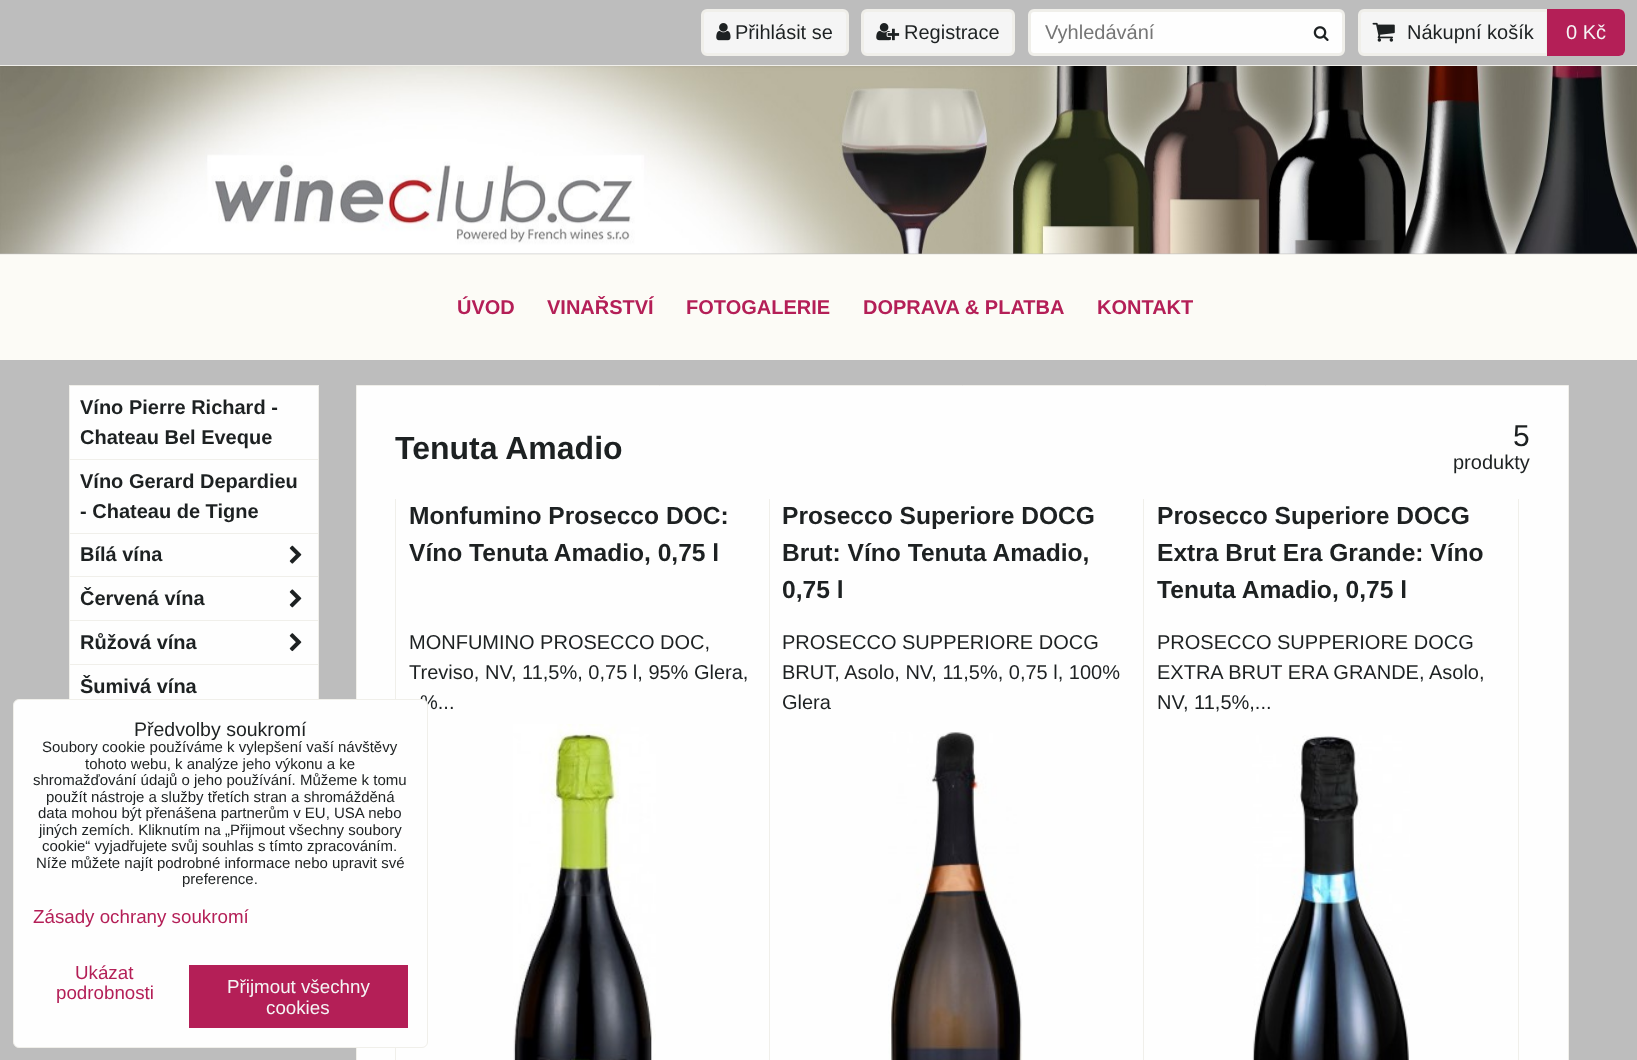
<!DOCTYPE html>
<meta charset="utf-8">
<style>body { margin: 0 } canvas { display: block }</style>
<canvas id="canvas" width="1637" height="1060"></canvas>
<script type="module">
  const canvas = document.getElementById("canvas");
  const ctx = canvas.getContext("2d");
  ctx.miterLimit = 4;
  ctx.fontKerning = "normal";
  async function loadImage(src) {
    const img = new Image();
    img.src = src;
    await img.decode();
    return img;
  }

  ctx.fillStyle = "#bdbdbd";
  ctx.fillRect(0, 0, 1637, 1060);
  ctx.fillStyle = "#f5f5f5";
  ctx.beginPath();
  ctx.roundRect(702.5, 10.5, 145, 44, 4.5);
  ctx.fill();
  ctx.strokeStyle = "#f0efea";
  ctx.lineWidth = 3;
  ctx.stroke();
  ctx.drawImage(await loadImage("img1.png"), 716, 23, 15, 18);
  ctx.font = "20px Liberation Sans";
  ctx.fillStyle = "#1d2122";
  ctx.fillText("Přihlásit se", 735, 39);
  ctx.fillStyle = "#f5f5f5";
  ctx.beginPath();
  ctx.roundRect(862.5, 10.5, 151, 44, 4.5);
  ctx.fill();
  ctx.stroke();
  ctx.drawImage(await loadImage("img2.png"), 876, 23, 24, 18);
  ctx.fillStyle = "#1d2122";
  ctx.fillText("Registrace", 904, 39);
  ctx.fillStyle = "#fefefe";
  ctx.beginPath();
  ctx.roundRect(1029.5, 10.5, 314, 44, 4.5);
  ctx.fill();
  ctx.stroke();
  ctx.fillStyle = "#757575";
  ctx.fillText("Vyhledávání", 1045, 39);
  ctx.drawImage(await loadImage("img3.png"), 1313, 26, 16, 15);
  ctx.fillStyle = "#f5f5f5";
  ctx.beginPath();
  ctx.roundRect(1359.5, 10.5, 264, 44, 4.5);
  ctx.fill();
  ctx.stroke();
  ctx.drawImage(await loadImage("img4.png"), 1372, 22, 23, 20);
  ctx.fillStyle = "#1d2122";
  ctx.fillText("Nákupní košík", 1407, 39);
  ctx.fillStyle = "#b41f57";
  ctx.beginPath();
  ctx.roundRect(1546, 9, 79, 47, [0, 6, 6, 0]);
  ctx.fill();
  ctx.fillStyle = "#f0efea";
  ctx.fillRect(1546, 9, 1, 47);
  ctx.fillStyle = "#f5f5f5";
  ctx.fillText("0 Kč", 1566, 39);
  ctx.fillStyle = "#f0efea";
  ctx.fillRect(0, 65, 1637, 1);
  ctx.fillRect(0, 254, 1637, 1);
  ctx.drawImage(await loadImage("img5.png"), 0, 66, 1637, 188);
  ctx.fillStyle = "#fcfbf6";
  ctx.fillRect(0, 255, 1637, 105);
  ctx.font = "bold 20px Liberation Sans";
  ctx.fillStyle = "#b41f57";
  ctx.fillText("ÚVOD", 457, 314);
  ctx.fillText("VINAŘSTVÍ", 547, 314);
  ctx.fillText("FOTOGALERIE", 686, 314);
  ctx.fillText("DOPRAVA & PLATBA", 863, 314);
  ctx.fillText("KONTAKT", 1097, 314);
  ctx.fillStyle = "#fefefe";
  ctx.fillRect(70, 386, 248, 313);
  ctx.lineWidth = 1;
  ctx.strokeRect(69.5, 385.5, 249, 542);
  ctx.fillStyle = "#f0efea";
  ctx.fillRect(70, 459, 248, 1);
  ctx.fillStyle = "#1d2122";
  ctx.fillText("Víno Pierre Richard -", 80, 414);
  ctx.fillText("Chateau Bel Eveque", 80, 444);
  ctx.fillStyle = "#f0efea";
  ctx.fillRect(70, 533, 248, 1);
  ctx.fillStyle = "#1d2122";
  ctx.fillText("Víno Gerard Depardieu", 80, 488);
  ctx.fillText("- Chateau de Tigne", 80, 518);
  ctx.fillStyle = "#f0efea";
  ctx.fillRect(70, 576, 248, 1);
  ctx.fillStyle = "#1d2122";
  ctx.fillText("Bílá vína", 80, 561);
  ctx.drawImage(await loadImage("img6.png"), 289, 545, 13, 19);
  ctx.fillStyle = "#f0efea";
  ctx.fillRect(70, 620, 248, 1);
  ctx.fillStyle = "#1d2122";
  ctx.fillText("Červená vína", 80, 605);
  ctx.drawImage(await loadImage("img7.png"), 289, 589, 13, 19);
  ctx.fillStyle = "#f0efea";
  ctx.fillRect(70, 664, 248, 1);
  ctx.fillStyle = "#1d2122";
  ctx.fillText("Růžová vína", 80, 649);
  ctx.drawImage(await loadImage("img8.png"), 289, 633, 13, 19);
  ctx.fillText("Šumivá vína", 80, 693);
  ctx.fillStyle = "#fefefe";
  ctx.beginPath();
  ctx.rect(356.5, 385.5, 1212, 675);
  ctx.fill();
  ctx.stroke();
  ctx.font = "bold 32px Liberation Sans";
  ctx.fillStyle = "#1d2122";
  ctx.fillText("Tenuta Amadio", 395, 459);
  ctx.font = "30px Liberation Sans";
  ctx.fillText("5", 1513, 446);
  ctx.font = "20px Liberation Sans";
  ctx.fillText("produkty", 1453, 469);
  ctx.fillStyle = "#f0efea";
  ctx.fillRect(769, 499, 1, 561);
  ctx.fillRect(395, 499, 1, 561);
  ctx.font = "bold 24.6px Liberation Sans";
  ctx.fillStyle = "#1d2122";
  ctx.fillText("Monfumino Prosecco DOC:", 409, 524);
  ctx.fillText("Víno Tenuta Amadio, 0,75 l", 409, 561);
  ctx.font = "20px Liberation Sans";
  ctx.fillText("MONFUMINO PROSECCO DOC,", 409, 649);
  ctx.fillText("Treviso, NV, 11,5%, 0,75 l, 95% Glera,", 409, 679);
  ctx.fillText("%...", 420, 709);
  ctx.drawImage(await loadImage("img9.png"), 513, 724, 143, 336);
  ctx.fillStyle = "#f0efea";
  ctx.fillRect(1143, 499, 1, 561);
  ctx.font = "bold 24.6px Liberation Sans";
  ctx.fillStyle = "#1d2122";
  ctx.fillText("Prosecco Superiore DOCG", 782, 524);
  ctx.fillText("Brut: Víno Tenuta Amadio,", 782, 561);
  ctx.fillText("0,75 l", 782, 598);
  ctx.font = "20px Liberation Sans";
  ctx.fillText("PROSECCO SUPPERIORE DOCG", 782, 649);
  ctx.fillText("BRUT, Asolo, NV, 11,5%, 0,75 l, 100%", 782, 679);
  ctx.fillText("Glera", 782, 709);
  ctx.drawImage(await loadImage("img10.png"), 888, 732, 135, 328);
  ctx.fillStyle = "#f0efea";
  ctx.fillRect(1518, 499, 1, 561);
  ctx.font = "bold 24.6px Liberation Sans";
  ctx.fillStyle = "#1d2122";
  ctx.fillText("Prosecco Superiore DOCG", 1157, 524);
  ctx.fillText("Extra Brut Era Grande: Víno", 1157, 561);
  ctx.fillText("Tenuta Amadio, 0,75 l", 1157, 598);
  ctx.font = "20px Liberation Sans";
  ctx.fillText("PROSECCO SUPPERIORE DOCG", 1157, 649);
  ctx.fillText("EXTRA BRUT ERA GRANDE, Asolo,", 1157, 679);
  ctx.fillText("NV, 11,5%,...", 1157, 709);
  ctx.drawImage(await loadImage("img11.png"), 1252, 735, 158, 325);
  ctx.fillStyle = "#fefefe";
  ctx.beginPath();
  ctx.roundRect(13.5, 699.5, 414, 348, 5.5);
  ctx.fill();
  ctx.stroke();
  ctx.font = "19.5px Liberation Sans";
  ctx.fillStyle = "#1d2122";
  ctx.fillText("Předvolby soukromí", 134, 736);
  ctx.font = "15px Liberation Sans";
  ctx.fillText("Soubory cookie používáme k vylepšení vaší návštěvy", 42, 752);
  ctx.fillText("tohoto webu, k analýze jeho výkonu a ke", 85, 769);
  ctx.fillText("shromažďování údajů o jeho používání. Můžeme k tomu", 33, 785);
  ctx.fillText("použít nástroje a služby třetích stran a shromážděná", 46, 802);
  ctx.fillText("data mohou být přenášena partnerům v EU, USA nebo", 38, 818);
  ctx.fillText("jiných zemích. Kliknutím na „Přijmout všechny soubory", 39, 835);
  ctx.fillText("cookie“ vyjadřujete svůj souhlas s tímto zpracováním.", 42, 851);
  ctx.fillText("Níže můžete najít podrobné informace nebo upravit své", 36, 868);
  ctx.fillText("preference.", 182, 884);
  ctx.font = "18.75px Liberation Sans";
  ctx.fillStyle = "#b41f57";
  ctx.fillText("Zásady ochrany soukromí", 33, 923);
  ctx.fillText("Ukázat", 75, 979);
  ctx.fillText("podrobnosti", 56, 999);
  ctx.fillRect(189, 965, 219, 63);
  ctx.fillStyle = "#f5f5f5";
  ctx.fillText("Přijmout všechny", 227, 993);
  ctx.fillText("cookies", 266, 1014);
</script>
